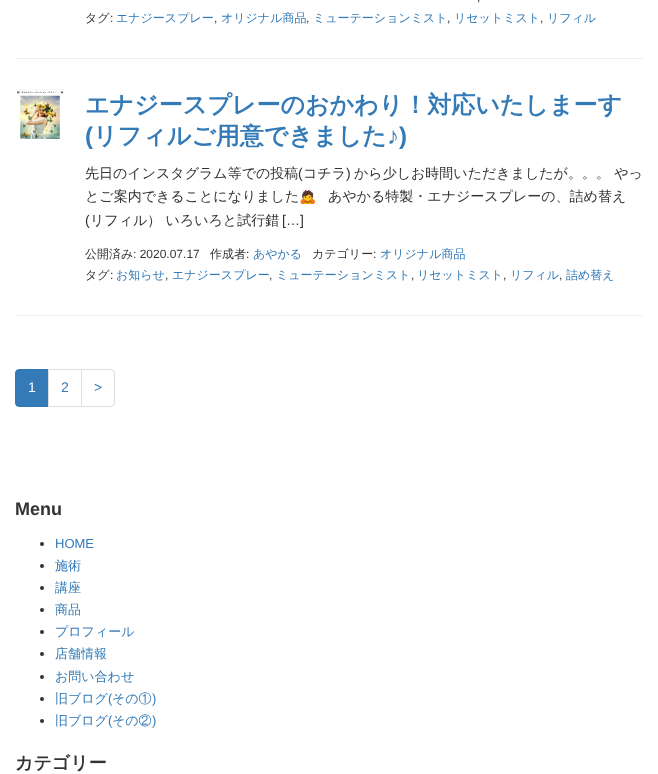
<!DOCTYPE html>
<meta charset="utf-8">
<style>body { margin: 0 } canvas { display: block }</style>
<canvas id="canvas" width="658" height="774"></canvas>
<script type="module">
  const canvas = document.getElementById("canvas");
  const ctx = canvas.getContext("2d");
  ctx.miterLimit = 4;
  ctx.fontKerning = "normal";
  async function loadImage(src) {
    const img = new Image();
    img.src = src;
    await img.decode();
    return img;
  }

  ctx.fillStyle = "#ffffff";
  ctx.fillRect(0, 0, 658, 774);
  ctx.fillStyle = "#eeeeee";
  ctx.fillRect(15, 58, 628, 1);
  ctx.font = "12px Liberation Sans";
  ctx.fillStyle = "#333333";
  ctx.fillText(",", 477, 1);
  ctx.font = "500 12px WenQuanYi Zen Hei";
  ctx.fillText("タグ", 85, 22);
  ctx.font = "12px Liberation Sans";
  ctx.fillText(":", 110, 22);
  ctx.font = "500 12px WenQuanYi Zen Hei";
  ctx.fillStyle = "#337ab7";
  ctx.fillText("エナジースプレー", 116, 22);
  ctx.font = "12px Liberation Sans";
  ctx.fillStyle = "#333333";
  ctx.fillText(",", 214, 22);
  ctx.font = "500 12px WenQuanYi Zen Hei";
  ctx.fillStyle = "#337ab7";
  ctx.fillText("オリジナル商品", 221, 22);
  ctx.font = "12px Liberation Sans";
  ctx.fillStyle = "#333333";
  ctx.fillText(",", 306, 22);
  ctx.font = "500 12px WenQuanYi Zen Hei";
  ctx.fillStyle = "#337ab7";
  ctx.fillText("ミューテーションミスト", 313, 22);
  ctx.font = "12px Liberation Sans";
  ctx.fillStyle = "#333333";
  ctx.fillText(",", 447, 22);
  ctx.font = "500 12px WenQuanYi Zen Hei";
  ctx.fillStyle = "#337ab7";
  ctx.fillText("リセットミスト", 454, 22);
  ctx.font = "12px Liberation Sans";
  ctx.fillStyle = "#333333";
  ctx.fillText(",", 540, 22);
  ctx.font = "500 12px WenQuanYi Zen Hei";
  ctx.fillStyle = "#337ab7";
  ctx.fillText("リフィル", 547, 22);
  ctx.fillStyle = "#eeeeee";
  ctx.fillRect(15, 315, 628, 1);
  ctx.drawImage(await loadImage("img1.png"), 15, 89, 50, 50);
  ctx.font = "bold 24px WenQuanYi Zen Hei";
  ctx.fillStyle = "#337ab7";
  ctx.fillText("エナジースプレーのおかわり！対応いたしまーす", 85, 113);
  ctx.font = "bold 24px Liberation Sans";
  ctx.fillText("(", 85, 144);
  ctx.font = "bold 24px WenQuanYi Zen Hei";
  ctx.fillText("リフィルご用意できました", 93, 144);
  ctx.font = "bold 24px Liberation Sans";
  ctx.fillText("♪)", 387, 144);
  ctx.font = "500 14px WenQuanYi Zen Hei";
  ctx.fillStyle = "#333333";
  ctx.fillText("先日のインスタグラム等での投稿", 85, 178);
  ctx.font = "14px Liberation Sans";
  ctx.fillText("(", 298, 178);
  ctx.font = "500 14px WenQuanYi Zen Hei";
  ctx.fillText("コチラ", 303, 178);
  ctx.font = "14px Liberation Sans";
  ctx.fillText(")", 346, 178);
  ctx.font = "500 14px WenQuanYi Zen Hei";
  ctx.fillText("から少しお時間いただきましたが。。。 やっ", 354, 178);
  ctx.fillText("とご案内できることになりました", 85, 201);
  ctx.font = "14px Noto Color Emoji";
  ctx.fillText("🙇", 299, 201);
  ctx.font = "500 14px WenQuanYi Zen Hei";
  ctx.fillText("あやかる特製・エナジースプレーの、詰め替え", 328, 201);
  ctx.font = "14px Liberation Sans";
  ctx.fillText("(", 85, 225);
  ctx.font = "500 14px WenQuanYi Zen Hei";
  ctx.fillText("リフィル） いろいろと試行錯", 90, 225);
  ctx.font = "14px Liberation Sans";
  ctx.fillText("[…]", 282, 225);
  ctx.font = "500 12px WenQuanYi Zen Hei";
  ctx.fillText("公開済み", 85, 258);
  ctx.font = "12px Liberation Sans";
  ctx.fillText(": 2020.07.17", 133, 258);
  ctx.font = "500 12px WenQuanYi Zen Hei";
  ctx.fillText("作成者", 210, 258);
  ctx.font = "12px Liberation Sans";
  ctx.fillText(":", 246, 258);
  ctx.font = "500 12px WenQuanYi Zen Hei";
  ctx.fillStyle = "#337ab7";
  ctx.fillText("あやかる", 253, 258);
  ctx.fillStyle = "#333333";
  ctx.fillText("カテゴリー", 312, 258);
  ctx.font = "12px Liberation Sans";
  ctx.fillText(":", 373, 258);
  ctx.font = "500 12px WenQuanYi Zen Hei";
  ctx.fillStyle = "#337ab7";
  ctx.fillText("オリジナル商品", 380, 258);
  ctx.fillStyle = "#333333";
  ctx.fillText("タグ", 85, 279);
  ctx.font = "12px Liberation Sans";
  ctx.fillText(":", 110, 279);
  ctx.font = "500 12px WenQuanYi Zen Hei";
  ctx.fillStyle = "#337ab7";
  ctx.fillText("お知らせ", 116, 279);
  ctx.font = "12px Liberation Sans";
  ctx.fillStyle = "#333333";
  ctx.fillText(",", 165, 279);
  ctx.font = "500 12px WenQuanYi Zen Hei";
  ctx.fillStyle = "#337ab7";
  ctx.fillText("エナジースプレー", 172, 279);
  ctx.font = "12px Liberation Sans";
  ctx.fillStyle = "#333333";
  ctx.fillText(",", 269, 279);
  ctx.font = "500 12px WenQuanYi Zen Hei";
  ctx.fillStyle = "#337ab7";
  ctx.fillText("ミューテーションミスト", 276, 279);
  ctx.font = "12px Liberation Sans";
  ctx.fillStyle = "#333333";
  ctx.fillText(",", 411, 279);
  ctx.font = "500 12px WenQuanYi Zen Hei";
  ctx.fillStyle = "#337ab7";
  ctx.fillText("リセットミスト", 417, 279);
  ctx.font = "12px Liberation Sans";
  ctx.fillStyle = "#333333";
  ctx.fillText(",", 503, 279);
  ctx.font = "500 12px WenQuanYi Zen Hei";
  ctx.fillStyle = "#337ab7";
  ctx.fillText("リフィル", 510, 279);
  ctx.font = "12px Liberation Sans";
  ctx.fillStyle = "#333333";
  ctx.fillText(",", 559, 279);
  ctx.font = "500 12px WenQuanYi Zen Hei";
  ctx.fillStyle = "#337ab7";
  ctx.fillText("詰め替え", 566, 279);
  ctx.beginPath();
  ctx.roundRect(15.5, 369.5, 33, 37, [3.5, 0, 0, 3.5]);
  ctx.fill();
  ctx.strokeStyle = "#337ab7";
  ctx.stroke();
  ctx.font = "14px Liberation Sans";
  ctx.fillStyle = "#ffffff";
  ctx.fillText("1", 28, 392);
  ctx.strokeStyle = "#dddddd";
  ctx.strokeRect(48.5, 369.5, 33, 37);
  ctx.fillStyle = "#337ab7";
  ctx.fillText("2", 61, 392);
  ctx.fillStyle = "#ffffff";
  ctx.beginPath();
  ctx.roundRect(81.5, 369.5, 33, 37, [0, 3.5, 3.5, 0]);
  ctx.fill();
  ctx.stroke();
  ctx.fillStyle = "#337ab7";
  ctx.fillText(">", 94, 392);
  ctx.font = "bold 18px Liberation Sans";
  ctx.fillStyle = "#333333";
  ctx.fillText("Menu", 15, 515);
  ctx.beginPath();
  ctx.arc(42, 544, 2, 0, Math.PI * 2);
  ctx.fill();
  ctx.font = "13px Liberation Sans";
  ctx.fillStyle = "#337ab7";
  ctx.fillText("HOME", 55, 548);
  ctx.fillStyle = "#333333";
  ctx.beginPath();
  ctx.arc(42, 566, 2, 0, Math.PI * 2);
  ctx.fill();
  ctx.font = "500 13px WenQuanYi Zen Hei";
  ctx.fillStyle = "#337ab7";
  ctx.fillText("施術", 55, 570);
  ctx.fillStyle = "#333333";
  ctx.beginPath();
  ctx.arc(42, 588, 2, 0, Math.PI * 2);
  ctx.fill();
  ctx.fillStyle = "#337ab7";
  ctx.fillText("講座", 55, 592);
  ctx.fillStyle = "#333333";
  ctx.beginPath();
  ctx.arc(42, 610, 2, 0, Math.PI * 2);
  ctx.fill();
  ctx.fillStyle = "#337ab7";
  ctx.fillText("商品", 55, 614);
  ctx.fillStyle = "#333333";
  ctx.beginPath();
  ctx.arc(42, 632, 2, 0, Math.PI * 2);
  ctx.fill();
  ctx.fillStyle = "#337ab7";
  ctx.fillText("プロフィール", 55, 636);
  ctx.fillStyle = "#333333";
  ctx.beginPath();
  ctx.arc(42, 654, 2, 0, Math.PI * 2);
  ctx.fill();
  ctx.fillStyle = "#337ab7";
  ctx.fillText("店舗情報", 55, 658);
  ctx.fillStyle = "#333333";
  ctx.beginPath();
  ctx.arc(42, 677, 2, 0, Math.PI * 2);
  ctx.fill();
  ctx.fillStyle = "#337ab7";
  ctx.fillText("お問い合わせ", 55, 681);
  ctx.fillStyle = "#333333";
  ctx.beginPath();
  ctx.arc(42, 699, 2, 0, Math.PI * 2);
  ctx.fill();
  ctx.fillStyle = "#337ab7";
  ctx.fillText("旧ブログ", 55, 703);
  ctx.font = "13px Liberation Sans";
  ctx.fillText("(", 108, 703);
  ctx.font = "500 13px WenQuanYi Zen Hei";
  ctx.fillText("その①", 112, 703);
  ctx.font = "13px Liberation Sans";
  ctx.fillText(")", 152, 703);
  ctx.fillStyle = "#333333";
  ctx.beginPath();
  ctx.arc(42, 721, 2, 0, Math.PI * 2);
  ctx.fill();
  ctx.font = "500 13px WenQuanYi Zen Hei";
  ctx.fillStyle = "#337ab7";
  ctx.fillText("旧ブログ", 55, 725);
  ctx.font = "13px Liberation Sans";
  ctx.fillText("(", 108, 725);
  ctx.font = "500 13px WenQuanYi Zen Hei";
  ctx.fillText("その②", 112, 725);
  ctx.font = "13px Liberation Sans";
  ctx.fillText(")", 152, 725);
  ctx.font = "bold 18px WenQuanYi Zen Hei";
  ctx.fillStyle = "#333333";
  ctx.fillText("カテゴリー", 15, 769);
</script>
